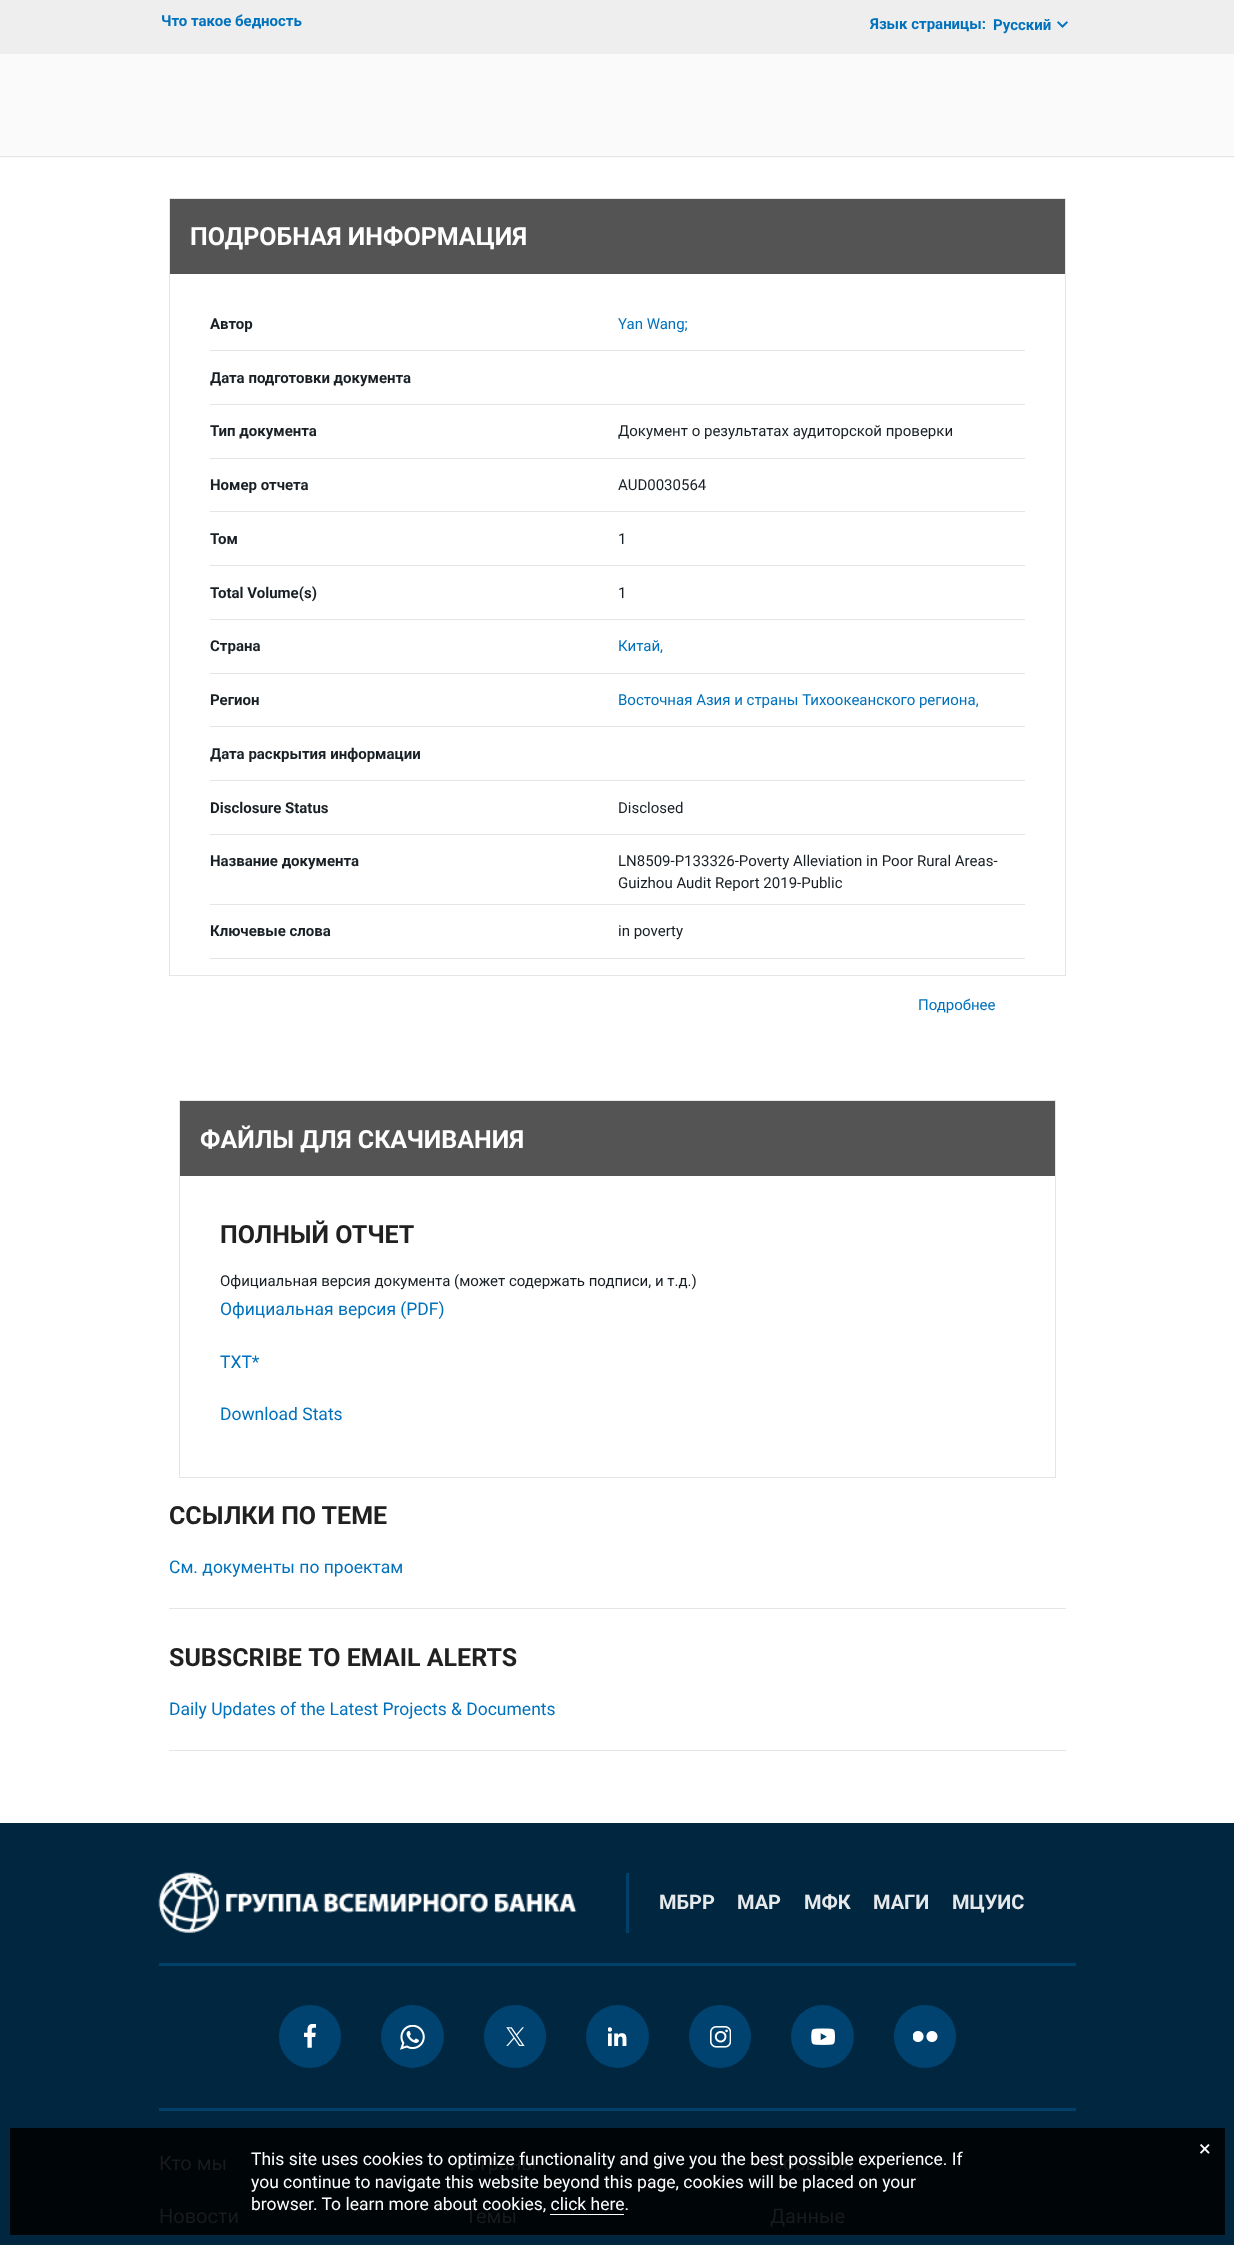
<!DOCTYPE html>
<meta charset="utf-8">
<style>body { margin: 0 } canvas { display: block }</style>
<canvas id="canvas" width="1234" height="2245"></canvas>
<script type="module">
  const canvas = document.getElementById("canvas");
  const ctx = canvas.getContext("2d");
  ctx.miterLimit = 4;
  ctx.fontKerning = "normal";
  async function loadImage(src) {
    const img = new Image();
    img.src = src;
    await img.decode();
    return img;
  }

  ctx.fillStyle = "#ffffff";
  ctx.fillRect(0, 0, 1234, 2245);
  ctx.fillStyle = "#eeeeee";
  ctx.fillRect(0, 0, 1234, 54);
  ctx.font = "bold 15px Roboto";
  ctx.fillStyle = "#0071bc";
  ctx.fillText("Что такое бедность", 161, 26);
  ctx.fillText("Язык страницы:", 870, 29);
  ctx.fillText("Русский", 993, 30);
  ctx.drawImage(await loadImage("img1.png"), 1057, 21, 11, 7);
  ctx.fillStyle = "#fafafa";
  ctx.fillRect(0, 54, 1234, 104);
  ctx.fillStyle = "#e5e5e5";
  ctx.fillRect(0, 156, 1234, 1);
  ctx.strokeStyle = "#e5e5e5";
  ctx.strokeRect(169.5, 198.5, 896, 777);
  ctx.fillStyle = "#545454";
  ctx.fillRect(170, 199, 895, 75);
  ctx.font = "bold 25px Roboto";
  ctx.fillStyle = "#ffffff";
  ctx.fillText("ПОДРОБНАЯ ИНФОРМАЦИЯ", 190, 245);
  ctx.fillStyle = "#e5e5e5";
  ctx.fillRect(210, 350, 815, 1);
  ctx.font = "bold 15px Roboto";
  ctx.fillStyle = "#181f25";
  ctx.fillText("Автор", 210, 329);
  ctx.font = "15px Roboto";
  ctx.fillStyle = "#0071bc";
  ctx.fillText("Yan Wang;", 618, 329);
  ctx.fillStyle = "#e5e5e5";
  ctx.fillRect(210, 404, 815, 1);
  ctx.font = "bold 15px Roboto";
  ctx.fillStyle = "#181f25";
  ctx.fillText("Дата подготовки документа", 210, 383);
  ctx.fillStyle = "#e5e5e5";
  ctx.fillRect(210, 458, 815, 1);
  ctx.fillStyle = "#181f25";
  ctx.fillText("Тип документа", 210, 436);
  ctx.font = "15px Roboto";
  ctx.fillText("Документ о результатах аудиторской проверки", 618, 436);
  ctx.fillStyle = "#e5e5e5";
  ctx.fillRect(210, 511, 815, 1);
  ctx.font = "bold 15px Roboto";
  ctx.fillStyle = "#181f25";
  ctx.fillText("Номер отчета", 210, 490);
  ctx.font = "15px Roboto";
  ctx.fillText("AUD0030564", 618, 490);
  ctx.fillStyle = "#e5e5e5";
  ctx.fillRect(210, 565, 815, 1);
  ctx.font = "bold 15px Roboto";
  ctx.fillStyle = "#181f25";
  ctx.fillText("Том", 210, 544);
  ctx.font = "15px Roboto";
  ctx.fillText("1", 618, 544);
  ctx.fillStyle = "#e5e5e5";
  ctx.fillRect(210, 619, 815, 1);
  ctx.font = "bold 15px Roboto";
  ctx.fillStyle = "#181f25";
  ctx.fillText("Total Volume(s)", 210, 598);
  ctx.font = "15px Roboto";
  ctx.fillText("1", 618, 598);
  ctx.fillStyle = "#e5e5e5";
  ctx.fillRect(210, 673, 815, 1);
  ctx.font = "bold 15px Roboto";
  ctx.fillStyle = "#181f25";
  ctx.fillText("Страна", 210, 651);
  ctx.font = "15px Roboto";
  ctx.fillStyle = "#0071bc";
  ctx.fillText("Китай,", 618, 651);
  ctx.fillStyle = "#e5e5e5";
  ctx.fillRect(210, 726, 815, 1);
  ctx.font = "bold 15px Roboto";
  ctx.fillStyle = "#181f25";
  ctx.fillText("Регион", 210, 705);
  ctx.font = "15px Roboto";
  ctx.fillStyle = "#0071bc";
  ctx.fillText("Восточная Азия и страны Тихоокеанского региона,", 618, 705);
  ctx.fillStyle = "#e5e5e5";
  ctx.fillRect(210, 780, 815, 1);
  ctx.font = "bold 15px Roboto";
  ctx.fillStyle = "#181f25";
  ctx.fillText("Дата раскрытия информации", 210, 759);
  ctx.fillStyle = "#e5e5e5";
  ctx.fillRect(210, 834, 815, 1);
  ctx.fillStyle = "#181f25";
  ctx.fillText("Disclosure Status", 210, 813);
  ctx.font = "15px Roboto";
  ctx.fillText("Disclosed", 618, 813);
  ctx.fillStyle = "#e5e5e5";
  ctx.fillRect(210, 904, 815, 1);
  ctx.font = "bold 15px Roboto";
  ctx.fillStyle = "#181f25";
  ctx.fillText("Название документа", 210, 866);
  ctx.font = "15px Roboto";
  ctx.fillText("LN8509-P133326-Poverty Alleviation in Poor Rural Areas-", 618, 866);
  ctx.fillText("Guizhou Audit Report 2019-Public", 618, 888);
  ctx.fillStyle = "#e5e5e5";
  ctx.fillRect(210, 958, 815, 1);
  ctx.font = "bold 15px Roboto";
  ctx.fillStyle = "#181f25";
  ctx.fillText("Ключевые слова", 210, 936);
  ctx.font = "15px Roboto";
  ctx.fillText("in poverty", 618, 936);
  ctx.fillStyle = "#0071bc";
  ctx.fillText("Подробнее", 918, 1010);
  ctx.strokeRect(179.5, 1100.5, 876, 377);
  ctx.fillStyle = "#545454";
  ctx.fillRect(180, 1101, 875, 75);
  ctx.font = "bold 25px Roboto";
  ctx.fillStyle = "#ffffff";
  ctx.fillText("ФАЙЛЫ ДЛЯ СКАЧИВАНИЯ", 200, 1148);
  ctx.fillStyle = "#212121";
  ctx.fillText("ПОЛНЫЙ ОТЧЕТ", 220, 1243);
  ctx.font = "15px Roboto";
  ctx.fillStyle = "#181f25";
  ctx.fillText("Официальная версия документа (может содержать подписи, и т.д.)", 220, 1286);
  ctx.font = "17.5px Roboto";
  ctx.fillStyle = "#0071bc";
  ctx.fillText("Официальная версия (PDF)", 220, 1315);
  ctx.fillText("TXT*", 220, 1368);
  ctx.fillText("Download Stats", 220, 1420);
  ctx.font = "bold 25px Roboto";
  ctx.fillStyle = "#212121";
  ctx.fillText("ССЫЛКИ ПО ТЕМЕ", 169, 1524);
  ctx.font = "17.5px Roboto";
  ctx.fillStyle = "#0071bc";
  ctx.fillText("См. документы по проектам", 169, 1573);
  ctx.fillStyle = "#e5e5e5";
  ctx.fillRect(169, 1608, 897, 1);
  ctx.font = "bold 25px Roboto";
  ctx.fillStyle = "#212121";
  ctx.fillText("SUBSCRIBE TO EMAIL ALERTS", 169, 1666);
  ctx.font = "17.5px Roboto";
  ctx.fillStyle = "#0071bc";
  ctx.fillText("Daily Updates of the Latest Projects & Documents", 169, 1715);
  ctx.fillStyle = "#e5e5e5";
  ctx.fillRect(169, 1750, 897, 1);
  ctx.fillStyle = "#012740";
  ctx.fillRect(0, 1823, 1234, 422);
  ctx.fillStyle = "#000508";
  ctx.fillRect(10, 2128, 1215, 107);
  ctx.fillStyle = "#00416c";
  ctx.fillRect(159, 2108, 917, 3);
  ctx.fillRect(626, 1873, 3, 60);
  ctx.drawImage(await loadImage("img2.png"), 158, 1872, 419, 61);
  ctx.font = "bold 20px Roboto";
  ctx.fillStyle = "#e6e9ec";
  ctx.fillText("МБРР", 659, 1909);
  ctx.fillText("МАР", 737, 1909);
  ctx.fillText("МФК", 804, 1909);
  ctx.fillText("МАГИ", 873, 1909);
  ctx.fillText("МЦУИС", 952, 1909);
  ctx.fillStyle = "#00416c";
  ctx.fillRect(159, 1963, 917, 3);
  ctx.fillStyle = "#004370";
  ctx.beginPath();
  ctx.roundRect(279, 2005, 62, 63, 31);
  ctx.fill();
  ctx.drawImage(await loadImage("img3.png"), 304, 2024, 12, 24);
  ctx.beginPath();
  ctx.arc(412.5, 2036.5, 31.5, 0, Math.PI * 2);
  ctx.fill();
  ctx.drawImage(await loadImage("img4.png"), 400, 2025, 25, 25);
  ctx.beginPath();
  ctx.roundRect(484, 2005, 62, 63, 31);
  ctx.fill();
  ctx.drawImage(await loadImage("img5.png"), 506, 2027, 19, 19);
  ctx.beginPath();
  ctx.arc(617.5, 2036.5, 31.5, 0, Math.PI * 2);
  ctx.fill();
  ctx.drawImage(await loadImage("img6.png"), 608, 2027, 19, 19);
  ctx.beginPath();
  ctx.roundRect(689, 2005, 62, 63, 31);
  ctx.fill();
  ctx.drawImage(await loadImage("img7.png"), 710, 2026, 21, 22);
  ctx.beginPath();
  ctx.arc(822.5, 2036.5, 31.5, 0, Math.PI * 2);
  ctx.fill();
  ctx.drawImage(await loadImage("img8.png"), 811, 2028, 24, 17);
  ctx.beginPath();
  ctx.roundRect(894, 2005, 62, 63, 31);
  ctx.fill();
  ctx.drawImage(await loadImage("img9.png"), 913, 2031, 25, 11);
  ctx.font = "20px Roboto";
  ctx.fillStyle = "#191a1b";
  ctx.fillText("Кто мы", 159, 2170);
  ctx.fillText("Новости", 159, 2223);
  ctx.fillText("Страны", 465, 2170);
  ctx.fillText("Темы", 465, 2223);
  ctx.fillText("События", 770, 2170);
  ctx.fillText("Данные", 770, 2223);
  ctx.font = "22px Roboto";
  ctx.fillStyle = "#ffffff";
  ctx.fillText("×", 1199, 2156);
  ctx.font = "17.5px Roboto";
  ctx.fillText("This site uses cookies to optimize functionality and give you the best possible experience. If", 251, 2165);
  ctx.fillText("you continue to navigate this website beyond this page, cookies will be placed on your", 251, 2188);
  ctx.fillText("browser. To learn more about cookies, click here.", 251, 2210);
  ctx.fillRect(550, 2214, 74, 1);
</script>
